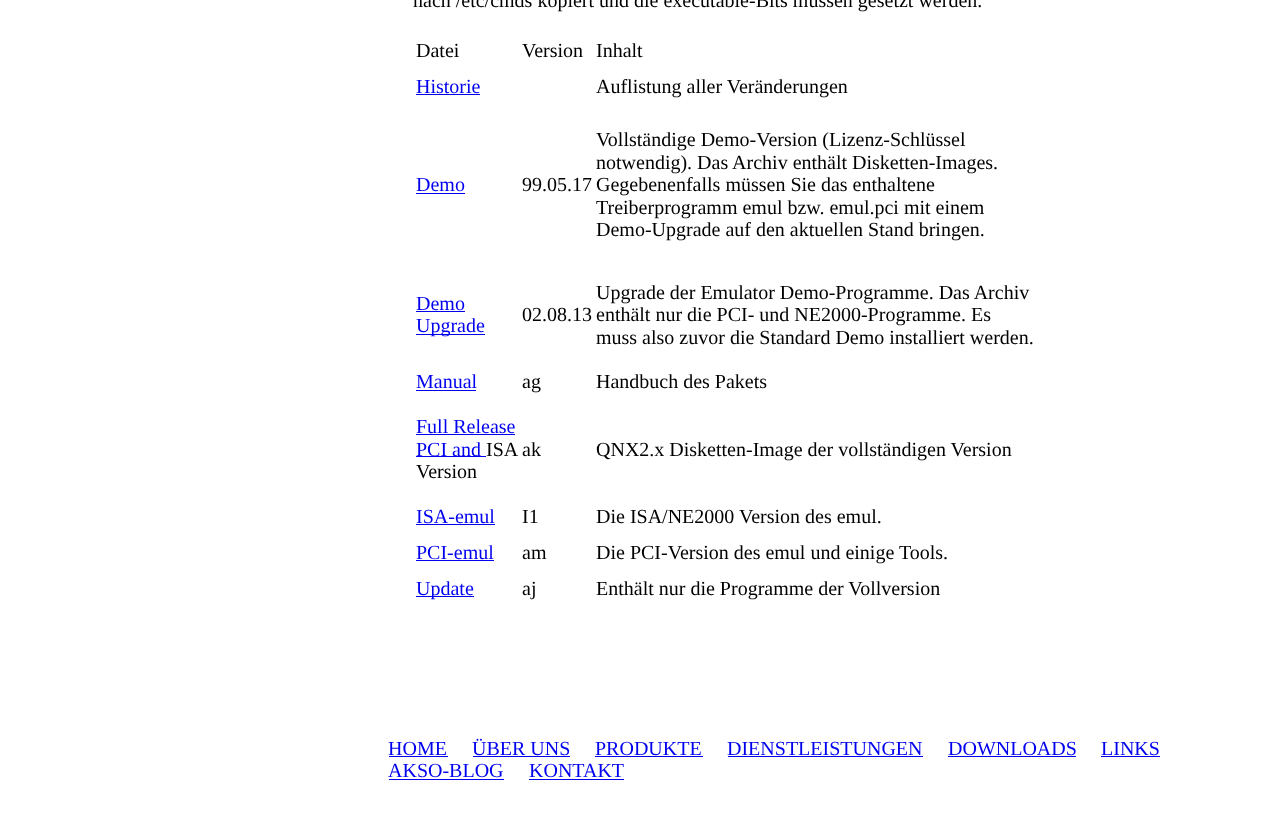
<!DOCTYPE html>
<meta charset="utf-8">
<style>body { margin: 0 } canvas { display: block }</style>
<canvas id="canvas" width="1276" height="814"></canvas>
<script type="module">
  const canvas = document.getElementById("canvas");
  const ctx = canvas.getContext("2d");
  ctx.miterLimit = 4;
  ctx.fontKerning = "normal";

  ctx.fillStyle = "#ffffff";
  ctx.fillRect(0, 0, 1276, 814);
  ctx.font = "20px Liberation Serif";
  ctx.fillStyle = "#000000";
  ctx.fillText("nach /etc/cmds kopiert und die executable-Bits müssen gesetzt werden.", 413, 7);
  ctx.fillText("Datei", 416, 57);
  ctx.fillText("Version", 522, 57);
  ctx.fillText("Inhalt", 596, 57);
  ctx.fillStyle = "#0000ee";
  ctx.fillText("Historie", 416, 93);
  ctx.fillRect(416, 94, 64, 1);
  ctx.fillStyle = "#000000";
  ctx.fillText("Auflistung aller Veränderungen", 596, 93);
  ctx.fillStyle = "#0000ee";
  ctx.fillText("Demo", 416, 191);
  ctx.fillRect(416, 193, 49, 1);
  ctx.fillStyle = "#000000";
  ctx.fillText("99.05.17", 522, 191);
  ctx.fillText("Vollständige Demo-Version (Lizenz-Schlüssel", 596, 146);
  ctx.fillText("notwendig). Das Archiv enthält Disketten-Images.", 596, 169);
  ctx.fillText("Gegebenenfalls müssen Sie das enthaltene", 596, 191);
  ctx.fillText("Treiberprogramm emul bzw. emul.pci mit einem", 596, 214);
  ctx.fillText("Demo-Upgrade auf den aktuellen Stand bringen.", 596, 236);
  ctx.fillStyle = "#0000ee";
  ctx.fillText("Demo", 416, 310);
  ctx.fillRect(416, 311, 49, 1);
  ctx.fillRect(416, 334, 69, 1);
  ctx.fillText("Upgrade", 416, 332);
  ctx.fillStyle = "#000000";
  ctx.fillText("02.08.13", 522, 321);
  ctx.fillText("Upgrade der Emulator Demo-Programme. Das Archiv", 596, 299);
  ctx.fillText("enthält nur die PCI- und NE2000-Programme. Es", 596, 321);
  ctx.fillText("muss also zuvor die Standard Demo installiert werden.", 596, 344);
  ctx.fillStyle = "#0000ee";
  ctx.fillText("Manual", 416, 388);
  ctx.fillRect(416, 390, 60, 1);
  ctx.fillStyle = "#000000";
  ctx.fillText("ag", 522, 388);
  ctx.fillText("Handbuch des Pakets", 596, 388);
  ctx.fillStyle = "#0000ee";
  ctx.fillText("Full Release", 416, 433);
  ctx.fillRect(416, 434, 99, 1);
  ctx.fillRect(416, 456, 70, 1);
  ctx.fillText("PCI and", 416, 456);
  ctx.fillStyle = "#000000";
  ctx.fillText("ISA", 486, 456);
  ctx.fillText("Version", 416, 478);
  ctx.fillText("ak", 522, 456);
  ctx.fillText("QNX2.x Disketten-Image der vollständigen Version", 596, 456);
  ctx.fillStyle = "#0000ee";
  ctx.fillText("ISA-emul", 416, 523);
  ctx.fillRect(416, 524, 79, 1);
  ctx.fillStyle = "#000000";
  ctx.fillText("I1", 522, 523);
  ctx.fillText("Die ISA/NE2000 Version des emul.", 596, 523);
  ctx.fillStyle = "#0000ee";
  ctx.fillText("PCI-emul", 416, 559);
  ctx.fillRect(416, 560, 78, 1);
  ctx.fillStyle = "#000000";
  ctx.fillText("am", 522, 559);
  ctx.fillText("Die PCI-Version des emul und einige Tools.", 596, 559);
  ctx.fillStyle = "#0000ee";
  ctx.fillRect(416, 596, 58, 1);
  ctx.fillText("Update", 416, 595);
  ctx.fillStyle = "#000000";
  ctx.fillText("aj", 522, 595);
  ctx.fillText("Enthält nur die Programme der Vollversion", 596, 595);
  ctx.fillStyle = "#0000ee";
  ctx.fillText("HOME", 388, 755);
  ctx.fillRect(389, 756, 59, 1);
  ctx.fillText("ÜBER UNS", 472, 755);
  ctx.fillRect(473, 756, 97, 1);
  ctx.fillText("PRODUKTE", 595, 755);
  ctx.fillRect(595, 756, 108, 1);
  ctx.fillText("DIENSTLEISTUNGEN", 727, 755);
  ctx.fillRect(728, 756, 195, 1);
  ctx.fillText("DOWNLOADS", 948, 755);
  ctx.fillRect(948, 756, 128, 1);
  ctx.fillText("LINKS", 1101, 755);
  ctx.fillRect(1101, 756, 59, 1);
  ctx.fillText("AKSO-BLOG", 388, 777);
  ctx.fillRect(389, 779, 115, 1);
  ctx.fillText("KONTAKT", 529, 777);
  ctx.fillRect(529, 779, 95, 1);
</script>
